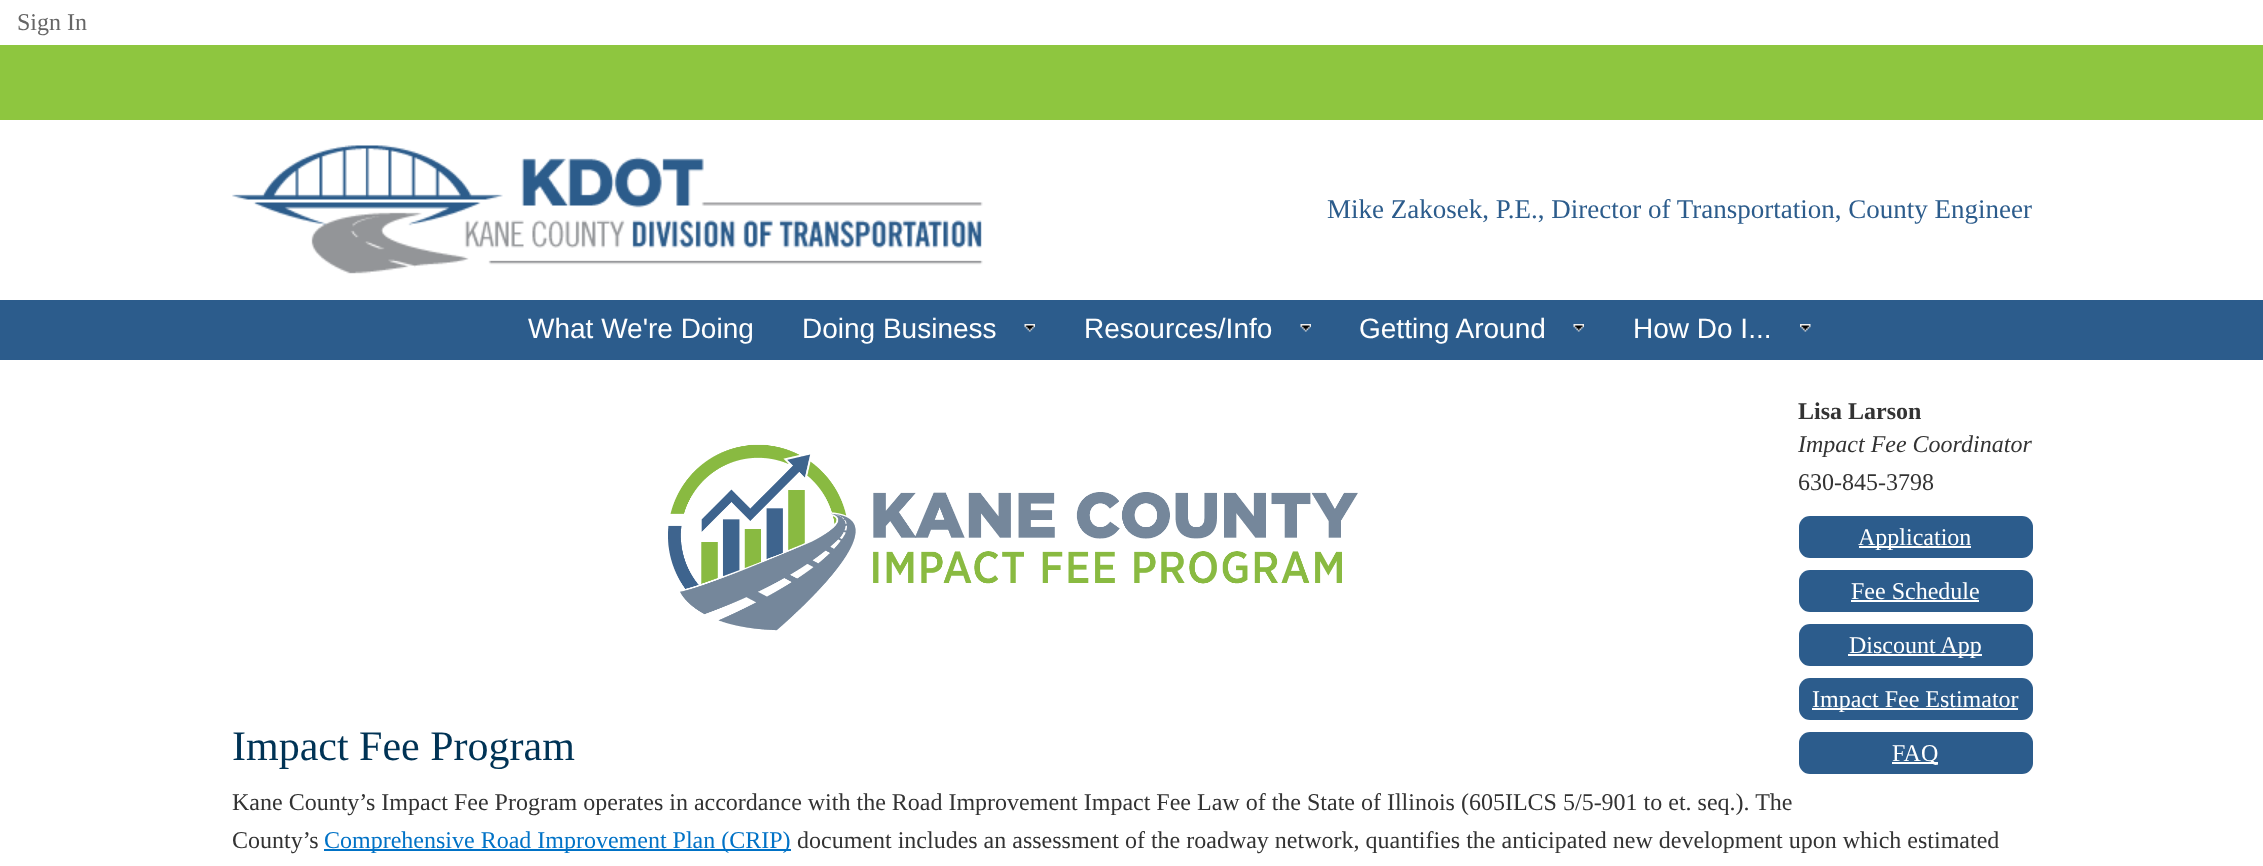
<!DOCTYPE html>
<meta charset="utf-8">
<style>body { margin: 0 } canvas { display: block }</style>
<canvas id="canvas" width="2263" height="866"></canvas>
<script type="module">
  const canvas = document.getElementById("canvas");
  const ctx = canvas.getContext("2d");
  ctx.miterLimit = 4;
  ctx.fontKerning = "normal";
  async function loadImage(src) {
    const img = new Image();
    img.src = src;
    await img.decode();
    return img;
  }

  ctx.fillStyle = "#ffffff";
  ctx.fillRect(0, 0, 2263, 866);
  ctx.font = "24px Liberation Serif";
  ctx.fillStyle = "#666666";
  ctx.fillText("Sign In", 17, 30);
  ctx.fillStyle = "#8ec63f";
  ctx.fillRect(0, 45, 2263, 75);
  ctx.drawImage(await loadImage("img1.png"), 232, 145, 751, 129);
  ctx.font = "27px Liberation Serif";
  ctx.fillStyle = "#2c5c8c";
  ctx.fillText("Mike Zakosek, P.E., Director of Transportation, County Engineer", 1327, 218);
  ctx.fillRect(0, 300, 2263, 60);
  ctx.font = "28px Liberation Sans";
  ctx.fillStyle = "#ffffff";
  ctx.fillText("What We're Doing", 528, 338);
  ctx.fillText("Doing Business", 802, 338);
  ctx.drawImage(await loadImage("img2.png"), 1024, 324, 11, 8);
  ctx.fillText("Resources/Info", 1084, 338);
  ctx.drawImage(await loadImage("img3.png"), 1300, 324, 11, 8);
  ctx.fillText("Getting Around", 1359, 338);
  ctx.drawImage(await loadImage("img4.png"), 1573, 324, 11, 8);
  ctx.fillText("How Do I...", 1633, 338);
  ctx.drawImage(await loadImage("img5.png"), 1800, 324, 11, 8);
  ctx.drawImage(await loadImage("img6.png"), 668, 444, 690, 187);
  ctx.font = "bold 24px Liberation Serif";
  ctx.fillStyle = "#333333";
  ctx.fillText("Lisa Larson", 1798, 419);
  ctx.font = "italic 24px Liberation Serif";
  ctx.fillText("Impact Fee Coordinator", 1798, 452);
  ctx.font = "24px Liberation Serif";
  ctx.fillText("630-845-3798", 1798, 490);
  ctx.fillStyle = "#2c5c8c";
  ctx.beginPath();
  ctx.roundRect(1799, 516, 234, 42, 11);
  ctx.fill();
  ctx.fillStyle = "#ffffff";
  ctx.fillRect(1859, 546, 112, 2);
  ctx.fillText("Application", 1858, 545);
  ctx.fillStyle = "#2c5c8c";
  ctx.beginPath();
  ctx.roundRect(1799, 570, 234, 42, 11);
  ctx.fill();
  ctx.fillStyle = "#ffffff";
  ctx.fillText("Fee Schedule", 1851, 599);
  ctx.fillRect(1851, 600, 128, 2);
  ctx.fillStyle = "#2c5c8c";
  ctx.beginPath();
  ctx.roundRect(1799, 624, 234, 42, 11);
  ctx.fill();
  ctx.fillStyle = "#ffffff";
  ctx.fillRect(1848, 654, 134, 2);
  ctx.fillText("Discount App", 1849, 653);
  ctx.fillStyle = "#2c5c8c";
  ctx.beginPath();
  ctx.roundRect(1799, 678, 234, 42, 11);
  ctx.fill();
  ctx.fillStyle = "#ffffff";
  ctx.fillRect(1812, 708, 206, 2);
  ctx.fillText("Impact Fee Estimator", 1812, 707);
  ctx.fillStyle = "#2c5c8c";
  ctx.beginPath();
  ctx.roundRect(1799, 732, 234, 42, 11);
  ctx.fill();
  ctx.fillStyle = "#ffffff";
  ctx.fillRect(1892, 762, 46, 2);
  ctx.fillText("FAQ", 1892, 761);
  ctx.font = "42px Liberation Serif";
  ctx.fillStyle = "#003355";
  ctx.fillText("Impact Fee Program", 232, 760);
  ctx.font = "24px Liberation Serif";
  ctx.fillStyle = "#333333";
  ctx.fillText("Kane County’s Impact Fee Program operates in accordance with the Road Improvement Impact Fee Law of the State of Illinois (605ILCS 5/5-901 to et. seq.). The", 232, 810);
  ctx.fillText("County’s", 232, 848);
  ctx.fillStyle = "#0072c6";
  ctx.fillRect(324, 849, 467, 2);
  ctx.fillText("Comprehensive Road Improvement Plan (CRIP)", 324, 848);
  ctx.fillStyle = "#333333";
  ctx.fillText("document includes an assessment of the roadway network, quantifies the anticipated new development upon which estimated", 797, 848);
</script>
